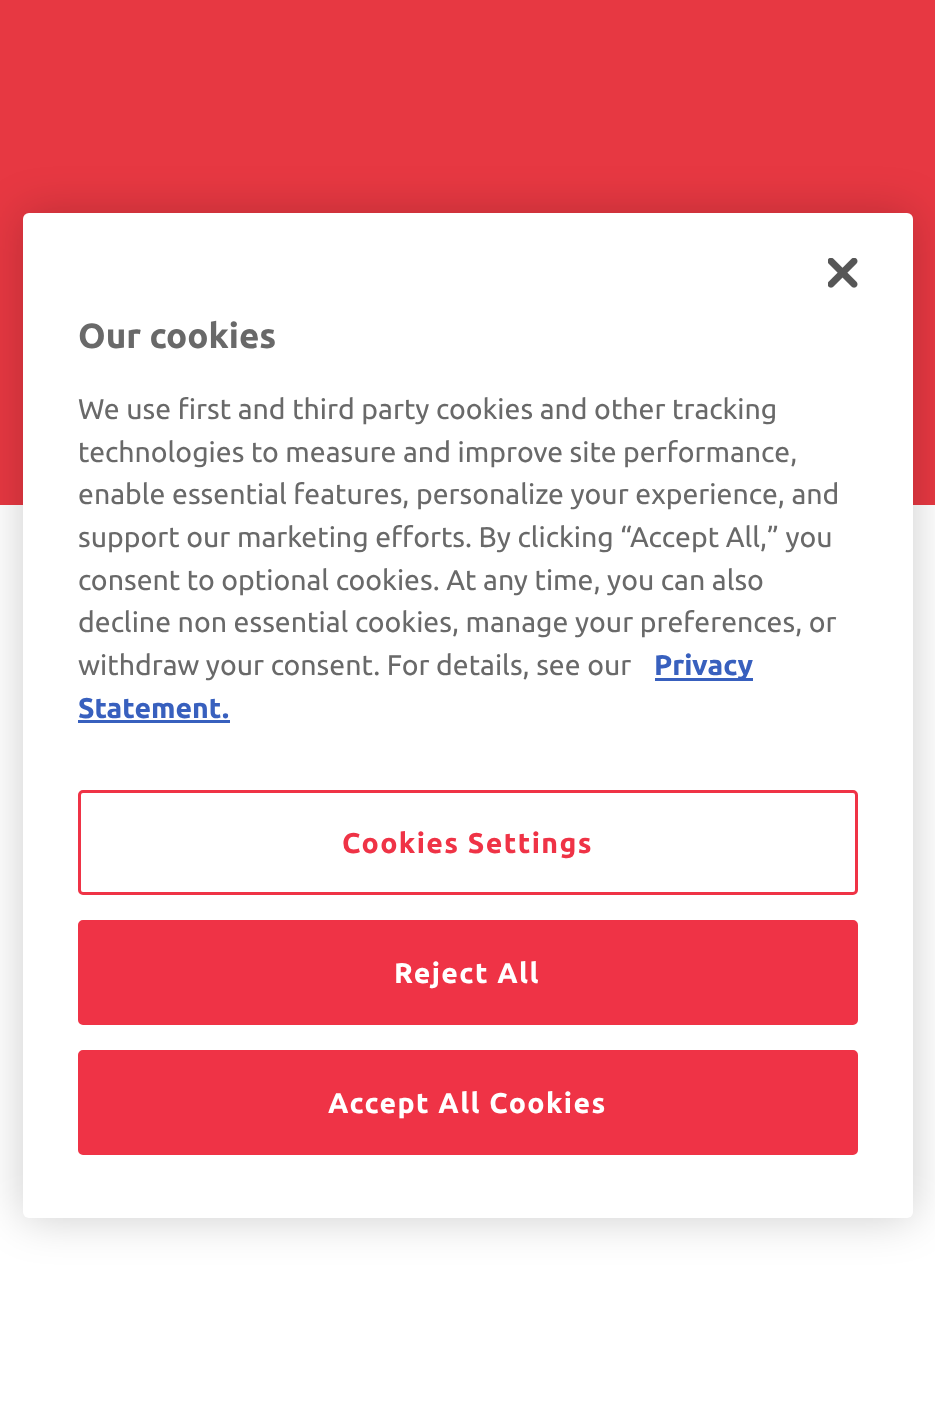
<!DOCTYPE html>
<meta charset="utf-8">
<style>body { margin: 0 } canvas { display: block }</style>
<canvas id="canvas" width="935" height="1428"></canvas>
<script type="module">
  const canvas = document.getElementById("canvas");
  const ctx = canvas.getContext("2d");
  ctx.miterLimit = 4;
  ctx.fontKerning = "normal";
  async function loadImage(src) {
    const img = new Image();
    img.src = src;
    await img.decode();
    return img;
  }

  ctx.fillStyle = "#ffffff";
  ctx.fillRect(0, 0, 935, 1428);
  ctx.fillStyle = "#e73842";
  ctx.fillRect(0, 0, 935, 505);
  ctx.fillStyle = "rgba(0, 0, 0, 0.2)";
  ctx.filter = "blur(22.5px)";
  ctx.beginPath();
  ctx.roundRect(23, 213, 890, 1005, 6);
  ctx.fill();
  ctx.filter = "none";
  ctx.fillStyle = "#ffffff";
  ctx.beginPath();
  ctx.roundRect(23, 213, 890, 1005, 6);
  ctx.fill();
  ctx.drawImage(await loadImage("img1.png"), 828, 258, 30, 30);
  ctx.font = "bold 35px Ubuntu";
  ctx.fillStyle = "#696969";
  ctx.fillText("Our cookies", 78, 348);
  ctx.font = "28.45px Ubuntu";
  ctx.fillText("We use first and third party cookies and other tracking", 78, 419);
  ctx.fillText("technologies to measure and improve site performance,", 78, 462);
  ctx.fillText("enable essential features, personalize your experience, and", 78, 504);
  ctx.fillText("support our marketing efforts. By clicking “Accept All,” you", 78, 547);
  ctx.fillText("consent to optional cookies. At any time, you can also", 78, 590);
  ctx.fillText("decline non essential cookies, manage your preferences, or", 78, 632);
  ctx.fillText("withdraw your consent. For details, see our", 78, 675);
  ctx.fillStyle = "#3860be";
  ctx.fillRect(655, 678, 98, 3);
  ctx.font = "bold 28.45px Ubuntu";
  ctx.fillText("Privacy", 654, 675);
  ctx.fillText("Statement.", 78, 718);
  ctx.fillRect(78, 720, 152, 3);
  ctx.beginPath();
  ctx.roundRect(79.5, 791.5, 777, 102, 3.5);
  ctx.strokeStyle = "#ef3346";
  ctx.lineWidth = 3;
  ctx.stroke();
  ctx.letterSpacing = "1.4px";
  ctx.fillStyle = "#ef3346";
  ctx.fillText("Cookies Settings", 342, 853);
  ctx.beginPath();
  ctx.roundRect(79.5, 921.5, 777, 102, 3.5);
  ctx.fill();
  ctx.stroke();
  ctx.fillStyle = "#ffffff";
  ctx.fillText("Reject All", 394, 983);
  ctx.fillStyle = "#ef3346";
  ctx.beginPath();
  ctx.roundRect(79.5, 1051.5, 777, 102, 3.5);
  ctx.fill();
  ctx.stroke();
  ctx.fillStyle = "#ffffff";
  ctx.fillText("Accept All Cookies", 328, 1113);
</script>
